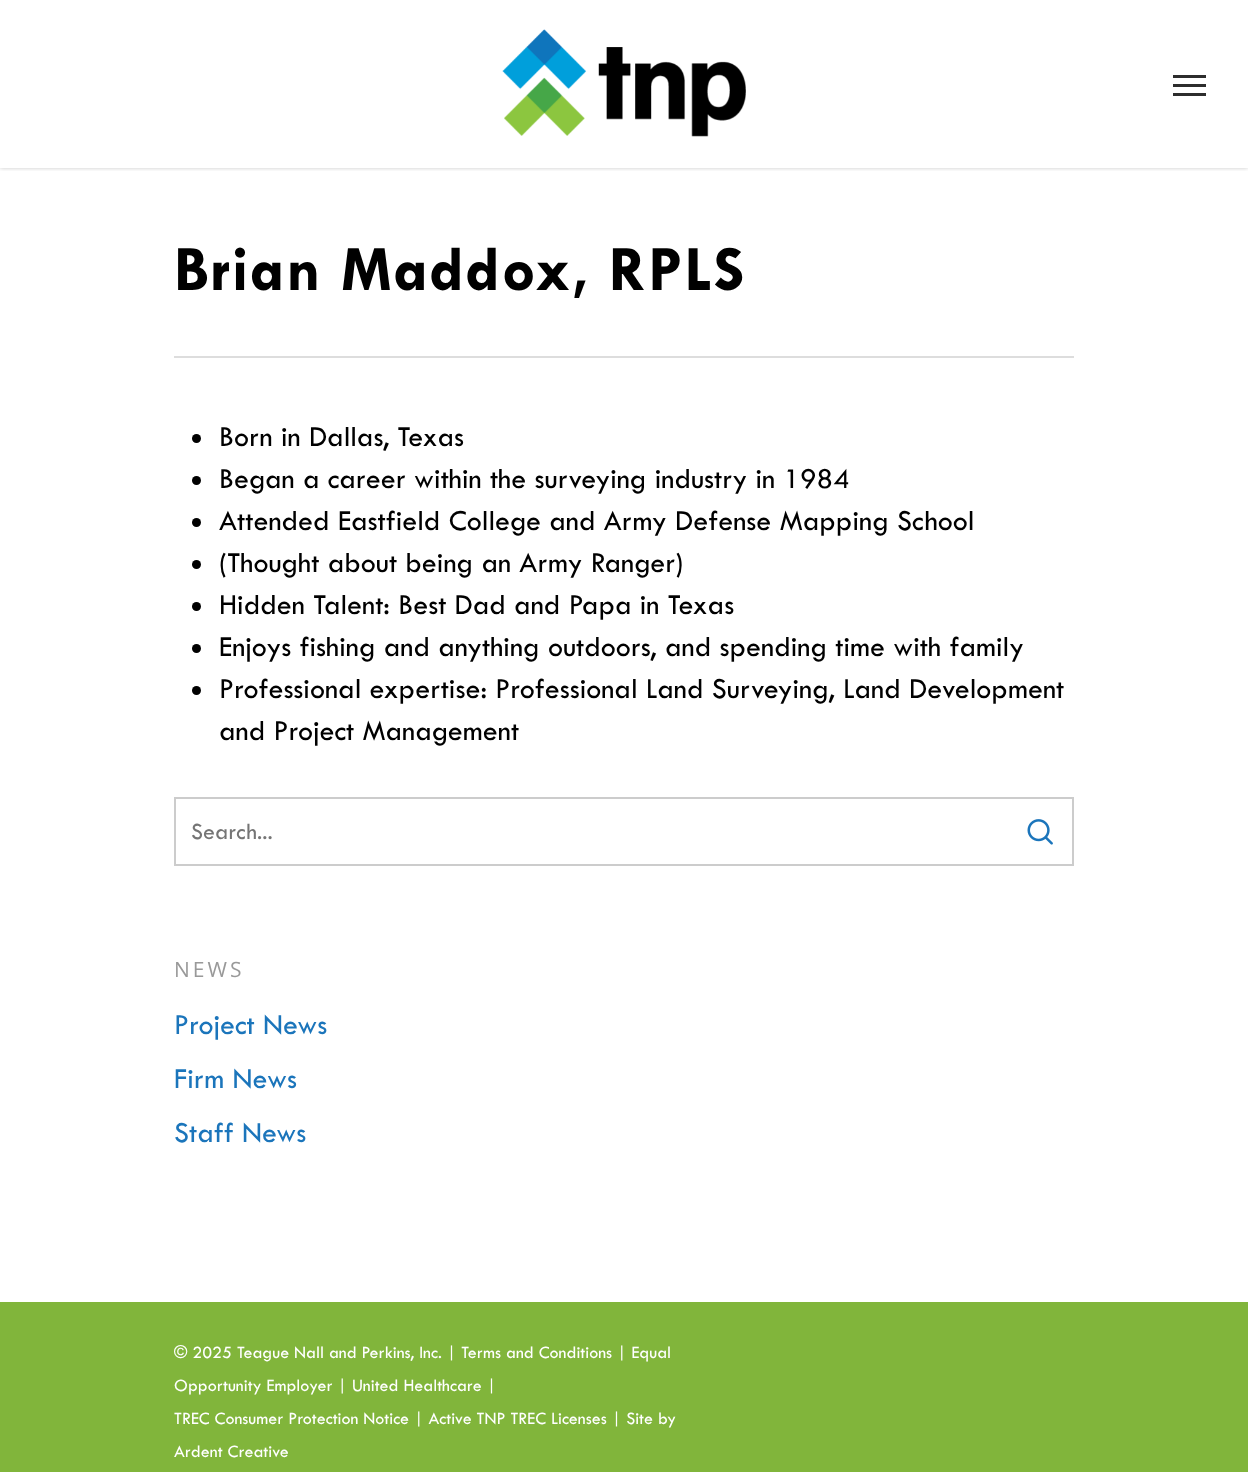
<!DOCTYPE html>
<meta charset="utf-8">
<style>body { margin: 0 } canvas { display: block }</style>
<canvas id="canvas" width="1248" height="1472"></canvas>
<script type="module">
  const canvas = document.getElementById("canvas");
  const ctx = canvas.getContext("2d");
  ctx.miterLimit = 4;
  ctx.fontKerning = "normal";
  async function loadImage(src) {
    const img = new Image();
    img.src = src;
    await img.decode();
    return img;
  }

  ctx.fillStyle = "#ffffff";
  ctx.fillRect(0, 0, 1248, 1472);
  ctx.save();
  ctx.beginPath();
  ctx.rect(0, 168, 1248, 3);
  ctx.clip();
  ctx.fillStyle = "rgba(0, 0, 0, 0.22)";
  ctx.filter = "blur(2px)";
  ctx.beginPath();
  ctx.rect(0, 0, 1248, 168);
  ctx.fill();
  ctx.filter = "none";
  ctx.restore();
  ctx.drawImage(await loadImage("img1.png"), 502, 29, 244, 108);
  ctx.fillStyle = "#2d2d2d";
  ctx.fillRect(1173, 75, 33, 3);
  ctx.fillRect(1173, 93, 33, 3);
  ctx.fillRect(1173, 84, 33, 3);
  ctx.fillStyle = "#dddddd";
  ctx.fillRect(174, 356, 900, 2);
  ctx.letterSpacing = "1.5px";
  ctx.font = "bold 65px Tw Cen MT";
  ctx.fillStyle = "#000000";
  ctx.fillText("Brian Maddox, RPLS", 174, 290);
  ctx.beginPath();
  ctx.arc(196.5, 438.5, 4.5, 0, Math.PI * 2);
  ctx.fill();
  ctx.letterSpacing = "0px";
  ctx.font = "30px Tw Cen MT";
  ctx.fillText("Born in Dallas, Texas", 219, 446);
  ctx.beginPath();
  ctx.arc(196.5, 480.5, 4.5, 0, Math.PI * 2);
  ctx.fill();
  ctx.fillText("Began a career within the surveying industry in 1984", 219, 488);
  ctx.beginPath();
  ctx.arc(196.5, 522.5, 4.5, 0, Math.PI * 2);
  ctx.fill();
  ctx.fillText("Attended Eastfield College and Army Defense Mapping School", 219, 530);
  ctx.beginPath();
  ctx.arc(196.5, 564.5, 4.5, 0, Math.PI * 2);
  ctx.fill();
  ctx.fillText("(Thought about being an Army Ranger)", 219, 572);
  ctx.beginPath();
  ctx.arc(196.5, 606.5, 4.5, 0, Math.PI * 2);
  ctx.fill();
  ctx.fillText("Hidden Talent: Best Dad and Papa in Texas", 219, 614);
  ctx.beginPath();
  ctx.arc(196.5, 648.5, 4.5, 0, Math.PI * 2);
  ctx.fill();
  ctx.fillText("Enjoys fishing and anything outdoors, and spending time with family", 219, 656);
  ctx.beginPath();
  ctx.arc(196.5, 690.5, 4.5, 0, Math.PI * 2);
  ctx.fill();
  ctx.fillText("Professional expertise: Professional Land Surveying, Land Development", 219, 698);
  ctx.fillText("and Project Management", 219, 740);
  ctx.strokeStyle = "#cccccc";
  ctx.lineWidth = 2;
  ctx.strokeRect(175, 798, 898, 67);
  ctx.font = "24px Tw Cen MT";
  ctx.fillStyle = "#757575";
  ctx.fillText("Search...", 191, 839);
  ctx.drawImage(await loadImage("img2.png"), 1027, 819, 26, 26);
  ctx.letterSpacing = "3px";
  ctx.font = "21px Open Sans";
  ctx.fillStyle = "#999999";
  ctx.fillText("NEWS", 174, 977);
  ctx.letterSpacing = "0px";
  ctx.font = "30px Tw Cen MT";
  ctx.fillStyle = "#1b75bb";
  ctx.fillText("Project News", 174, 1034);
  ctx.fillText("Firm News", 174, 1088);
  ctx.fillText("Staff News", 174, 1142);
  ctx.fillStyle = "#81b53b";
  ctx.fillRect(0, 1302, 1248, 170);
  ctx.font = "18px Tw Cen MT";
  ctx.fillStyle = "#ffffff";
  ctx.fillText("© 2025 Teague Nall and Perkins, Inc. | Terms and Conditions | Equal", 174, 1358);
  ctx.fillText("Opportunity Employer | United Healthcare |", 174, 1391);
  ctx.fillText("TREC Consumer Protection Notice | Active TNP TREC Licenses | Site by", 174, 1424);
  ctx.fillText("Ardent Creative", 174, 1457);
</script>
